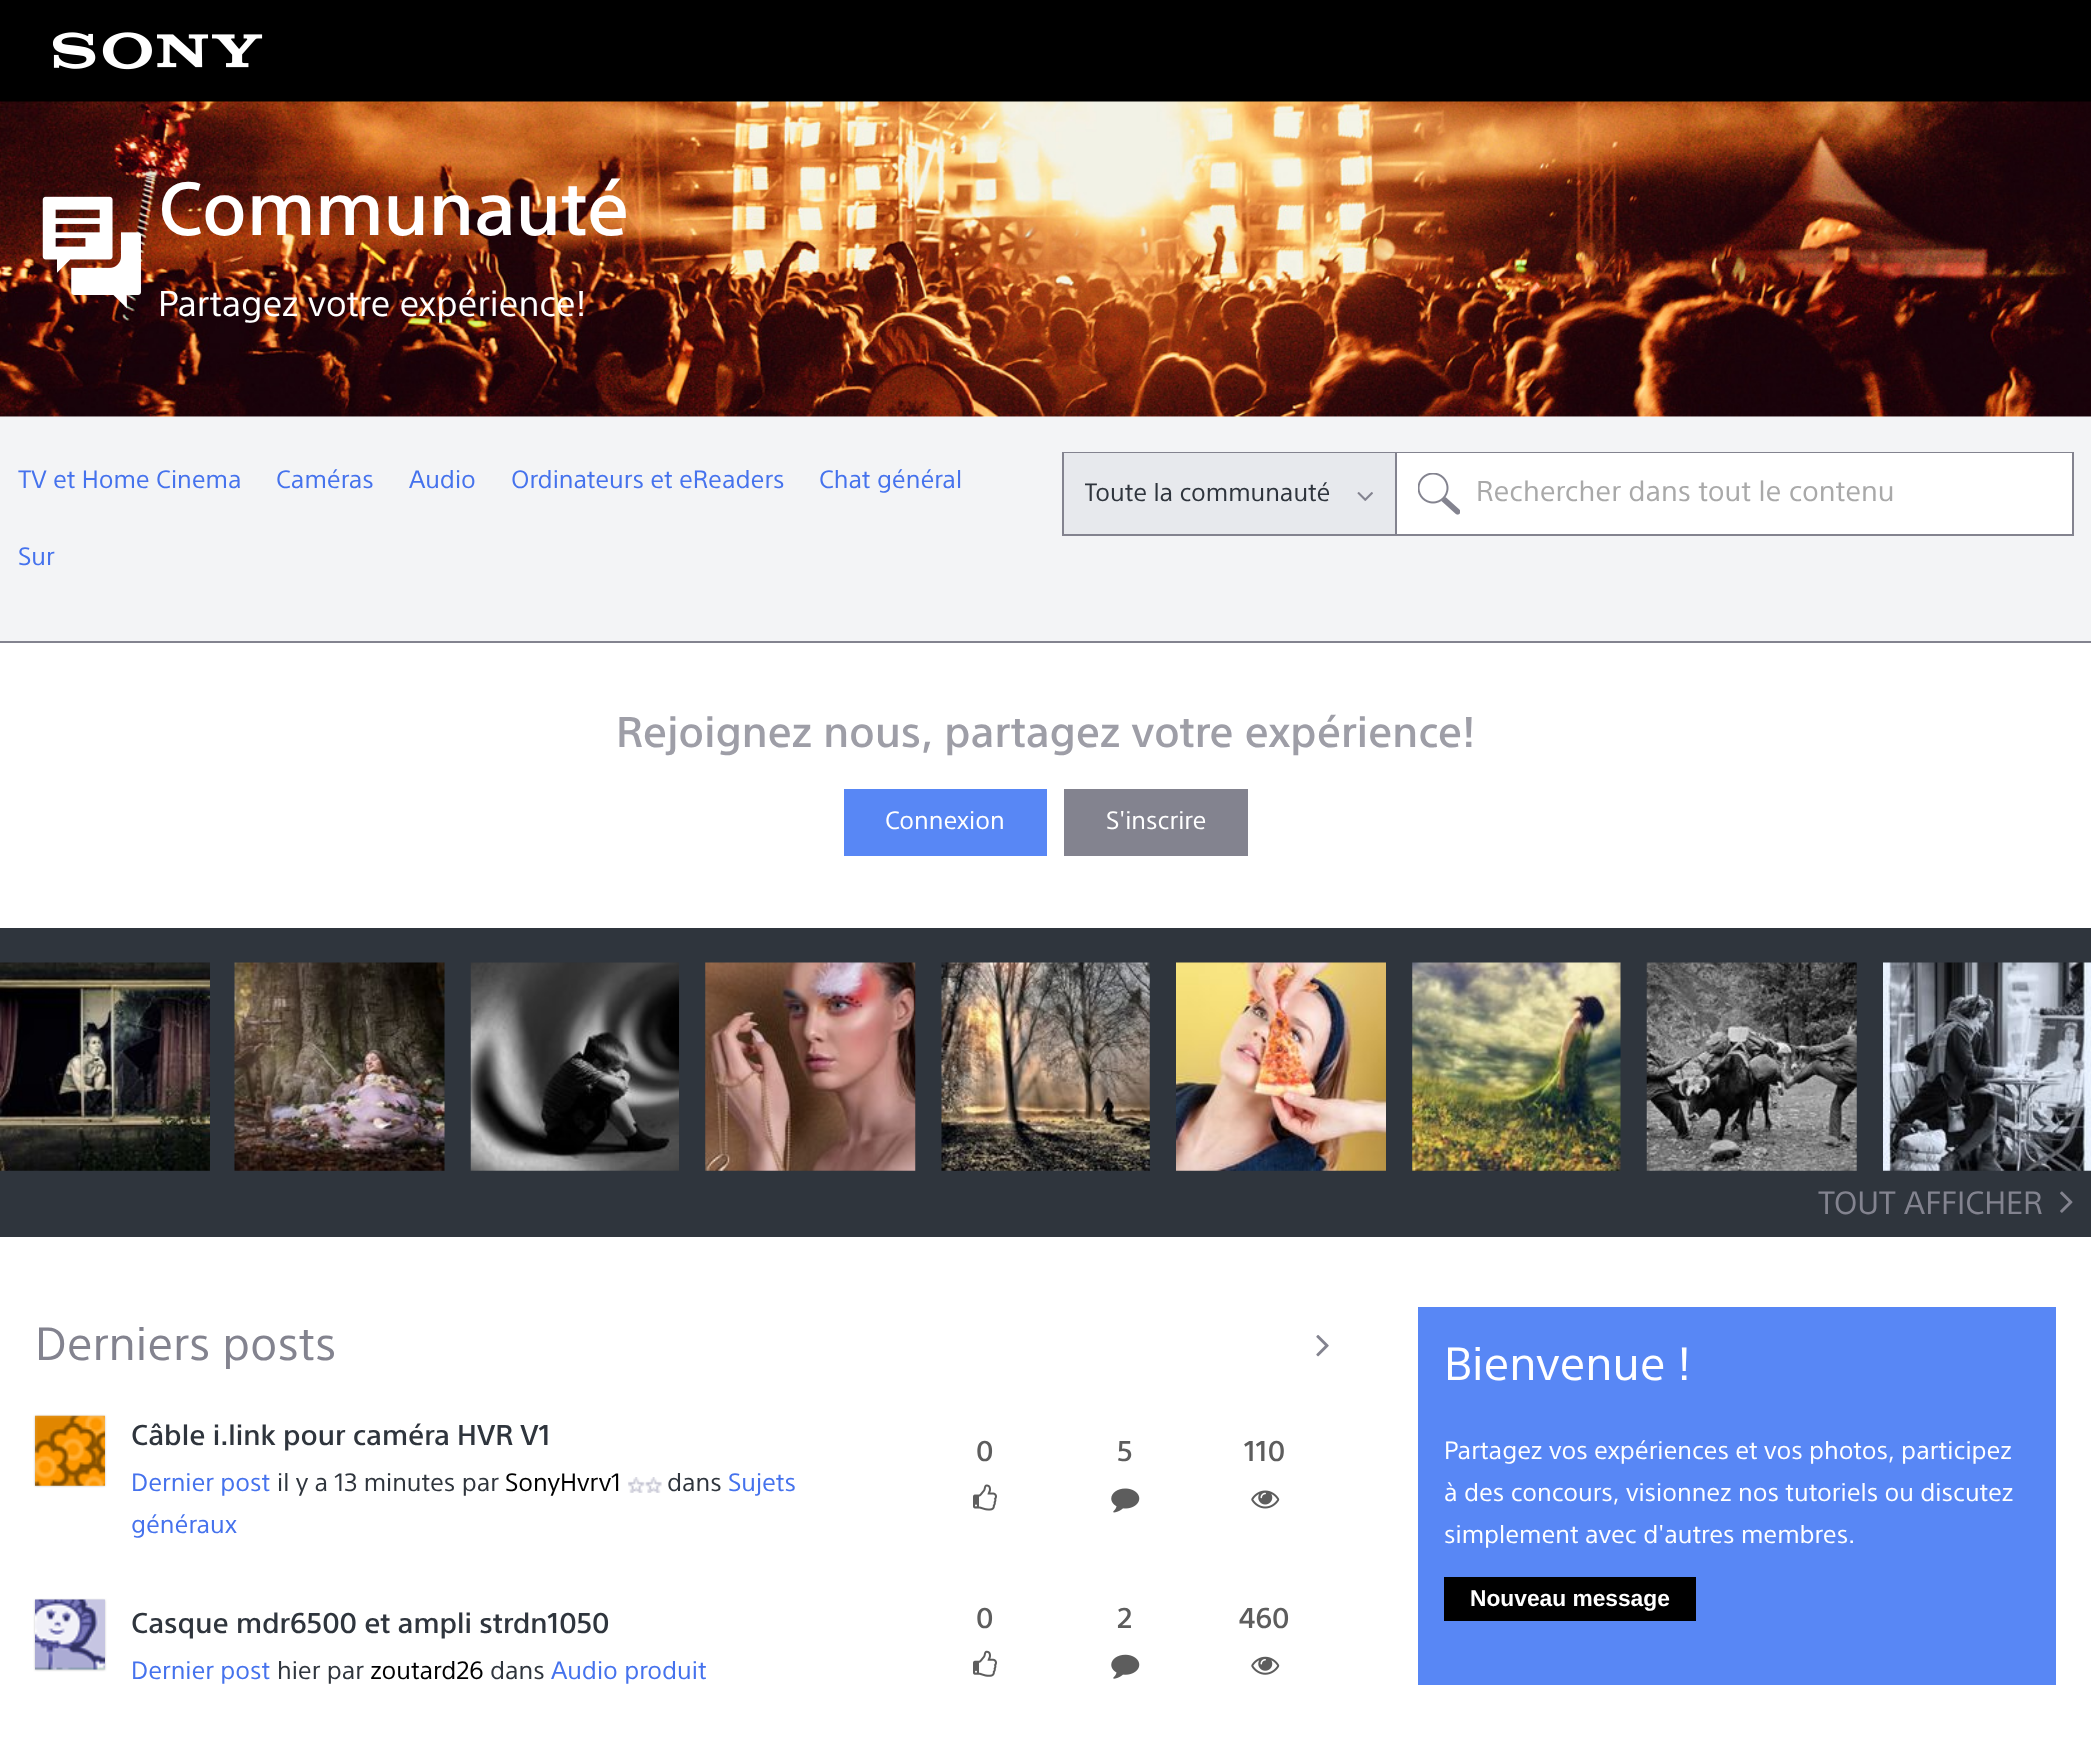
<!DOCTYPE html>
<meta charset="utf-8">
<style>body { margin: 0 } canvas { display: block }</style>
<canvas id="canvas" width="2091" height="1745"></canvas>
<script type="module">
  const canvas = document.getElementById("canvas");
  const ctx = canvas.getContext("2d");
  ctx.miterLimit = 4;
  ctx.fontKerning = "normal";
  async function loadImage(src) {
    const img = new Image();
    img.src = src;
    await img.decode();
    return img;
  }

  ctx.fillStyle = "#ffffff";
  ctx.fillRect(0, 0, 2091, 1745);
  ctx.fillStyle = "#000000";
  ctx.fillRect(0, 0, 2091, 102);
  ctx.drawImage(await loadImage("img1.png"), 53, 32, 210, 38);
  ctx.drawImage(await loadImage("img2.png"), 0, 101, 2091, 316);
  ctx.drawImage(await loadImage("img3.png"), 42, 196, 99, 113);
  ctx.font = "500 73.5px 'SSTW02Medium'";
  ctx.fillStyle = "#ffffff";
  ctx.fillText("Communauté", 158, 235);
  ctx.font = "35px 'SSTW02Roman'";
  ctx.fillText("Partagez votre expérience!", 158, 316);
  ctx.fillStyle = "#f3f4f6";
  ctx.fillRect(0, 417, 2091, 224);
  ctx.fillStyle = "#83838f";
  ctx.fillRect(0, 641, 2091, 2);
  ctx.font = "24.5px 'SSTW02Roman'";
  ctx.fillStyle = "#4572ed";
  ctx.fillText("TV et Home Cinema", 18, 488);
  ctx.fillText("Caméras", 276, 488);
  ctx.fillText("Audio", 409, 488);
  ctx.fillText("Ordinateurs et eReaders", 511, 488);
  ctx.fillText("Chat général", 819, 488);
  ctx.fillText("Sur", 18, 565);
  ctx.strokeStyle = "#83838f";
  ctx.lineWidth = 2;
  ctx.strokeRect(1063, 453, 1010, 82);
  ctx.fillStyle = "#e7e9ed";
  ctx.fillRect(1064, 453, 331, 81);
  ctx.fillStyle = "#83838f";
  ctx.fillRect(1395, 453, 2, 81);
  ctx.save();
  ctx.beginPath();
  ctx.rect(1085, 473, 247, 42);
  ctx.clip();
  ctx.fillStyle = "#2f353d";
  ctx.fillText("Toute la communauté", 1084, 501);
  ctx.restore();
  ctx.drawImage(await loadImage("img4.png"), 1357, 492, 16, 9);
  ctx.fillStyle = "#ffffff";
  ctx.fillRect(1397, 453, 675, 81);
  ctx.drawImage(await loadImage("img5.png"), 1418, 473, 42, 42);
  ctx.font = "28px 'SSTW02Roman'";
  ctx.fillStyle = "#a9a9a9";
  ctx.fillText("Rechercher dans tout le contenu", 1476, 501);
  ctx.font = "500 42px 'SSTW02Medium'";
  ctx.fillStyle = "#9e9ea7";
  ctx.fillText("Rejoignez nous, partagez votre expérience!", 616, 747);
  ctx.fillStyle = "#5887f5";
  ctx.fillRect(844, 789, 203, 67);
  ctx.font = "24.5px 'SSTW02Roman'";
  ctx.fillStyle = "#ffffff";
  ctx.fillText("Connexion", 885, 829);
  ctx.fillStyle = "#83838f";
  ctx.fillRect(1064, 789, 184, 67);
  ctx.fillStyle = "#ffffff";
  ctx.fillText("S'inscrire", 1106, 829);
  ctx.fillStyle = "#2f353d";
  ctx.fillRect(0, 928, 2091, 309);
  ctx.drawImage(await loadImage("img6.png"), 0, 962, 210, 209);
  ctx.drawImage(await loadImage("img7.png"), 234, 962, 211, 209);
  ctx.drawImage(await loadImage("img8.png"), 470, 962, 209, 209);
  ctx.drawImage(await loadImage("img9.png"), 705, 962, 211, 209);
  ctx.drawImage(await loadImage("img10.png"), 941, 962, 209, 209);
  ctx.drawImage(await loadImage("img11.png"), 1176, 962, 210, 209);
  ctx.drawImage(await loadImage("img12.png"), 1412, 962, 209, 209);
  ctx.drawImage(await loadImage("img13.png"), 1646, 962, 211, 209);
  ctx.drawImage(await loadImage("img14.png"), 1883, 962, 208, 209);
  ctx.font = "31.5px 'SSTW02Roman'";
  ctx.fillStyle = "#83838f";
  ctx.fillText("TOUT AFFICHER", 1818, 1214);
  ctx.drawImage(await loadImage("img15.png"), 2060, 1191, 13, 22);
  ctx.font = "45.5px 'SSTW02Roman'";
  ctx.fillText("Derniers posts", 35, 1360);
  ctx.drawImage(await loadImage("img16.png"), 1316, 1335, 13, 22);
  ctx.fillStyle = "#c4c4c4";
  ctx.filter = "blur(1px)";
  ctx.beginPath();
  ctx.rect(35, 1416, 70, 70);
  ctx.fill();
  ctx.filter = "none";
  ctx.drawImage(await loadImage("img17.png"), 35, 1415, 70, 71);
  ctx.font = "500 28px 'SSTW02Medium'";
  ctx.fillStyle = "#2f353d";
  ctx.fillText("Câble i.link pour caméra HVR V1", 131, 1445);
  ctx.font = "24.5px 'SSTW02Roman'";
  ctx.fillStyle = "#4572ed";
  ctx.fillText("Dernier post", 131, 1491);
  ctx.fillStyle = "#2f353d";
  ctx.fillText("il y a 13 minutes par", 277, 1491);
  ctx.fillStyle = "#000000";
  ctx.fillText("SonyHvrv1", 505, 1491);
  ctx.drawImage(await loadImage("img18.png"), 628, 1477, 34, 16);
  ctx.fillStyle = "#2f353d";
  ctx.fillText("dans", 667, 1491);
  ctx.fillStyle = "#4572ed";
  ctx.fillText("Sujets", 728, 1491);
  ctx.fillText("généraux", 131, 1533);
  ctx.font = "500 28px 'SSTW02Medium'";
  ctx.fillStyle = "#5d5d5d";
  ctx.fillText("0", 976, 1461);
  ctx.drawImage(await loadImage("img19.png"), 973, 1484, 24, 27);
  ctx.fillText("5", 1117, 1461);
  ctx.drawImage(await loadImage("img20.png"), 1111, 1488, 29, 25);
  ctx.fillText("110", 1244, 1461);
  ctx.drawImage(await loadImage("img21.png"), 1251, 1490, 29, 19);
  ctx.fillStyle = "#c4c4c4";
  ctx.filter = "blur(1px)";
  ctx.beginPath();
  ctx.rect(35, 1600, 70, 70);
  ctx.fill();
  ctx.filter = "none";
  ctx.drawImage(await loadImage("img22.png"), 35, 1599, 70, 71);
  ctx.fillStyle = "#2f353d";
  ctx.fillText("Casque mdr6500 et ampli strdn1050", 131, 1633);
  ctx.font = "24.5px 'SSTW02Roman'";
  ctx.fillStyle = "#4572ed";
  ctx.fillText("Dernier post", 131, 1679);
  ctx.fillStyle = "#2f353d";
  ctx.fillText("hier par", 277, 1679);
  ctx.fillStyle = "#000000";
  ctx.fillText("zoutard26", 370, 1679);
  ctx.fillStyle = "#2f353d";
  ctx.fillText("dans", 490, 1679);
  ctx.fillStyle = "#4572ed";
  ctx.fillText("Audio produit", 551, 1679);
  ctx.font = "500 28px 'SSTW02Medium'";
  ctx.fillStyle = "#5d5d5d";
  ctx.fillText("0", 976, 1628);
  ctx.drawImage(await loadImage("img23.png"), 973, 1650, 24, 27);
  ctx.fillText("2", 1117, 1628);
  ctx.drawImage(await loadImage("img24.png"), 1111, 1654, 29, 25);
  ctx.fillText("460", 1239, 1628);
  ctx.drawImage(await loadImage("img25.png"), 1251, 1656, 29, 19);
  ctx.fillStyle = "#5887f5";
  ctx.fillRect(1418, 1307, 638, 378);
  ctx.font = "45.5px 'SSTW02Roman'";
  ctx.fillStyle = "#ffffff";
  ctx.fillText("Bienvenue !", 1444, 1380);
  ctx.font = "24.5px 'SSTW02Roman'";
  ctx.fillText("Partagez vos expériences et vos photos, participez", 1444, 1459);
  ctx.fillText("à des concours, visionnez nos tutoriels ou discutez", 1444, 1501);
  ctx.fillText("simplement avec d'autres membres.", 1444, 1543);
  ctx.fillStyle = "#000000";
  ctx.fillRect(1444, 1577, 252, 44);
  ctx.font = "bold 22.75px Liberation Sans";
  ctx.fillStyle = "#ffffff";
  ctx.fillText("Nouveau message", 1470, 1606);
</script>
